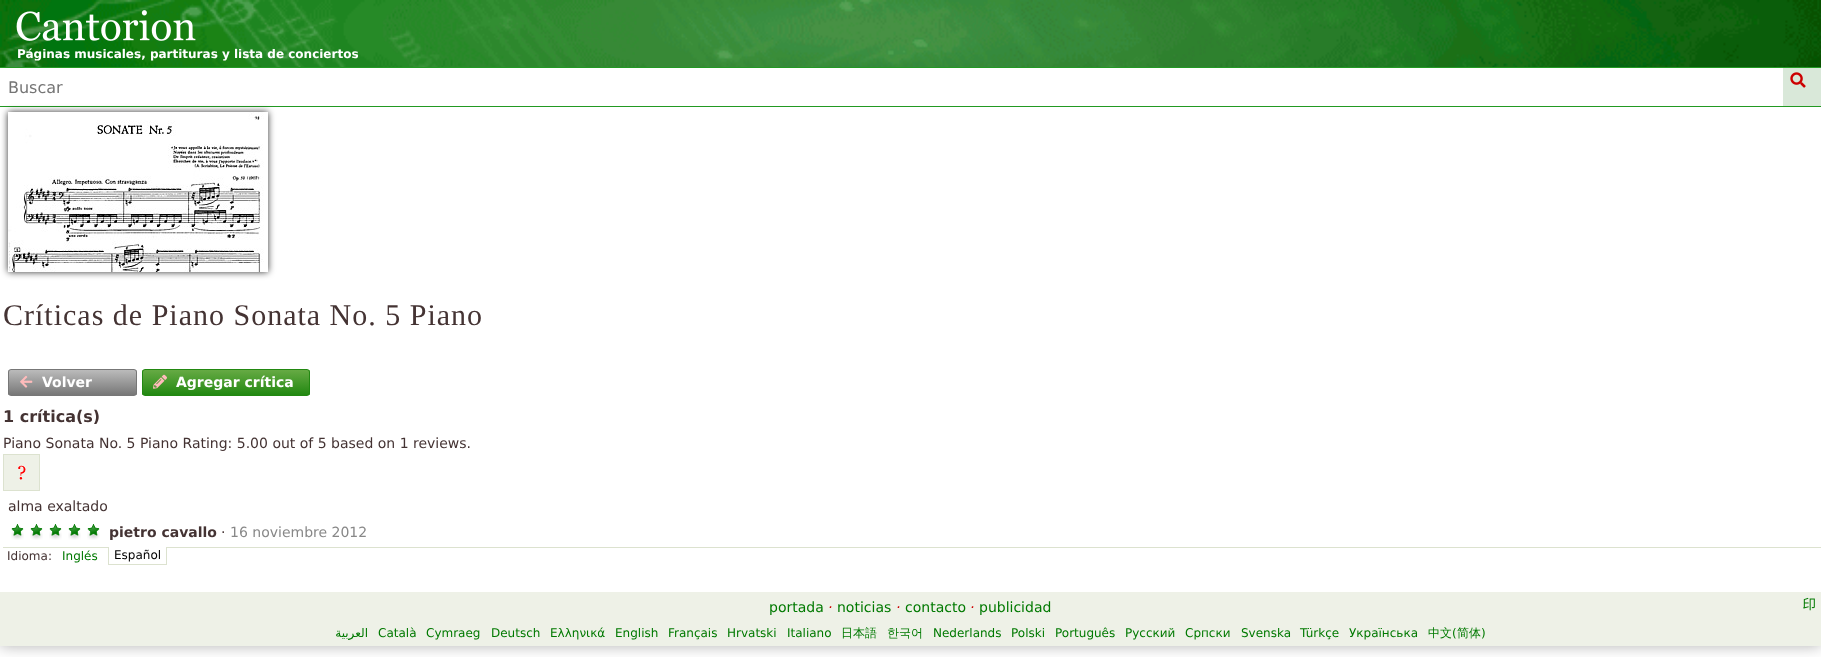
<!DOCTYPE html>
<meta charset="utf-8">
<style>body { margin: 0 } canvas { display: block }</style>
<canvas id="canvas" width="1821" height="662"></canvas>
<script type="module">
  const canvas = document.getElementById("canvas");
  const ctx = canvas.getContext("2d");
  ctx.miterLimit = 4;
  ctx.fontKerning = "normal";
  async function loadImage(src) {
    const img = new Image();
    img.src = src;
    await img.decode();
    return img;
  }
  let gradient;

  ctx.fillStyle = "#ffffff";
  ctx.fillRect(0, 0, 1821, 662);
  ctx.save();
  ctx.beginPath();
  ctx.rect(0, 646, 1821, 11);
  ctx.clip();
  ctx.fillStyle = "rgba(0, 0, 0, 0.3)";
  ctx.filter = "blur(7.5px)";
  ctx.beginPath();
  ctx.rect(0, 0, 1821, 646);
  ctx.fill();
  ctx.filter = "none";
  ctx.restore();
  ctx.drawImage(await loadImage("img1.png"), 0, 0, 1821, 67);
  ctx.drawImage(await loadImage("img2.png"), 16, 10, 180, 31);
  ctx.font = "bold 12px DejaVu Sans";
  ctx.fillText("Páginas musicales, partituras y lista de conciertos", 17, 58);
  ctx.fillStyle = "#229922";
  ctx.fillRect(0, 67, 1821, 1);
  ctx.fillRect(0, 106, 1821, 1);
  ctx.font = "16px DejaVu Sans";
  ctx.fillStyle = "#757575";
  ctx.fillText("Buscar", 8, 93);
  ctx.fillStyle = "#d9e8d9";
  ctx.fillRect(1783, 68, 38, 38);
  ctx.drawImage(await loadImage("img3.png"), 1790, 72, 16, 16);
  ctx.save();
  ctx.beginPath();
  ctx.moveTo(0, 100);
  ctx.lineTo(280, 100);
  ctx.lineTo(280, 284);
  ctx.lineTo(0, 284);
  ctx.closePath();
  ctx.moveTo(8, 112);
  ctx.lineTo(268, 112);
  ctx.lineTo(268, 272);
  ctx.lineTo(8, 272);
  ctx.closePath();
  ctx.clip("evenodd");
  ctx.fillStyle = "rgba(0, 0, 0, 0.8)";
  ctx.filter = "blur(3.5px)";
  ctx.beginPath();
  ctx.rect(8, 112, 260, 160);
  ctx.fill();
  ctx.filter = "none";
  ctx.restore();
  ctx.drawImage(await loadImage("img4.png"), 8, 112, 256, 160);
  ctx.letterSpacing = "1px";
  ctx.font = "30px Liberation Serif";
  ctx.fillStyle = "#443333";
  ctx.fillText("Críticas de Piano Sonata No. 5 Piano", 3, 325);
  ctx.save();
  ctx.beginPath();
  ctx.roundRect(8, 369, 129, 27, 3);
  ctx.clip();
  gradient = ctx.createLinearGradient(73, 370, 73, 395);
  gradient.addColorStop(0, "#bbbbbb");
  gradient.addColorStop(1, "#777777");
  ctx.fillStyle = gradient;
  ctx.fillRect(8, 370, 129, 25);
  ctx.restore();
  ctx.beginPath();
  ctx.roundRect(8.5, 369.5, 128, 26, 2.5);
  ctx.strokeStyle = "#777777";
  ctx.stroke();
  ctx.drawImage(await loadImage("img5.png"), 20, 375, 13, 13);
  ctx.letterSpacing = "0px";
  ctx.font = "bold 14px DejaVu Sans";
  ctx.fillStyle = "#ffffff";
  ctx.fillText("Volver", 42, 387);
  ctx.save();
  ctx.beginPath();
  ctx.roundRect(142, 369, 168, 27, 3);
  ctx.clip();
  gradient = ctx.createLinearGradient(226, 370, 226, 395);
  gradient.addColorStop(0, "#66aa44");
  gradient.addColorStop(1, "#228811");
  ctx.fillStyle = gradient;
  ctx.fillRect(142, 370, 168, 25);
  ctx.restore();
  ctx.beginPath();
  ctx.roundRect(142.5, 369.5, 167, 26, 2.5);
  ctx.strokeStyle = "#228811";
  ctx.stroke();
  ctx.drawImage(await loadImage("img6.png"), 153, 374, 14, 15);
  ctx.fillText("Agregar crítica", 176, 387);
  ctx.font = "bold 16px DejaVu Sans";
  ctx.fillStyle = "#443333";
  ctx.fillText("1 crítica(s)", 3, 422);
  ctx.font = "14px DejaVu Sans";
  ctx.fillText("Piano Sonata No. 5 Piano Rating: 5.00 out of 5 based on 1 reviews.", 3, 448);
  ctx.strokeStyle = "#dce2cf";
  ctx.strokeRect(3.5, 454.5, 36, 36);
  ctx.drawImage(await loadImage("img7.png"), 4, 455, 35, 35);
  ctx.fillText("alma exaltado", 8, 511);
  ctx.drawImage(await loadImage("img8.png"), 11, 524, 13, 16);
  ctx.drawImage(await loadImage("img8.png"), 30, 524, 13, 16);
  ctx.drawImage(await loadImage("img8.png"), 49, 524, 13, 16);
  ctx.drawImage(await loadImage("img8.png"), 68, 524, 13, 16);
  ctx.drawImage(await loadImage("img8.png"), 87, 524, 13, 16);
  ctx.font = "bold 14px DejaVu Sans";
  ctx.fillText("pietro cavallo", 109, 537);
  ctx.font = "14px DejaVu Sans";
  ctx.fillText("·", 221, 537);
  ctx.fillStyle = "#888888";
  ctx.fillText("16 noviembre 2012", 230, 537);
  ctx.fillStyle = "#dce2cf";
  ctx.fillRect(3, 547, 1818, 1);
  ctx.font = "12px DejaVu Sans";
  ctx.fillStyle = "#443333";
  ctx.fillText("Idioma:", 7, 560);
  ctx.fillStyle = "#007900";
  ctx.fillText("Inglés", 62, 560);
  ctx.fillStyle = "#ffffff";
  ctx.fillRect(109, 547, 57, 1);
  ctx.fillStyle = "#dce2cf";
  ctx.fillRect(166, 547, 1, 18);
  ctx.fillRect(108, 564, 59, 1);
  ctx.fillRect(108, 547, 1, 18);
  ctx.fillStyle = "#000000";
  ctx.fillText("Español", 114, 559);
  ctx.fillStyle = "#eef1e7";
  ctx.fillRect(0, 592, 1821, 54);
  ctx.font = "14px DejaVu Sans";
  ctx.fillStyle = "#007900";
  ctx.fillText("portada", 769, 612);
  ctx.font = "italic 14px DejaVu Sans";
  ctx.fillStyle = "#cc0000";
  ctx.fillText("·", 828, 612);
  ctx.font = "14px DejaVu Sans";
  ctx.fillStyle = "#007900";
  ctx.fillText("noticias", 837, 612);
  ctx.font = "italic 14px DejaVu Sans";
  ctx.fillStyle = "#cc0000";
  ctx.fillText("·", 896, 612);
  ctx.font = "14px DejaVu Sans";
  ctx.fillStyle = "#007900";
  ctx.fillText("contacto", 905, 612);
  ctx.font = "italic 14px DejaVu Sans";
  ctx.fillStyle = "#cc0000";
  ctx.fillText("·", 970, 612);
  ctx.font = "14px DejaVu Sans";
  ctx.fillStyle = "#007900";
  ctx.fillText("publicidad", 979, 612);
  ctx.drawImage(await loadImage("img9.png"), 1803, 597, 12, 14);
  ctx.direction = "rtl";
  ctx.font = "12px DejaVu Sans";
  ctx.fillText("العربية", 368, 637);
  ctx.direction = "ltr";
  ctx.fillText("Català", 378, 637);
  ctx.fillText("Cymraeg", 426, 637);
  ctx.fillText("Deutsch", 491, 637);
  ctx.fillText("Ελληνικά", 550, 637);
  ctx.fillText("English", 615, 637);
  ctx.fillText("Français", 668, 637);
  ctx.fillText("Hrvatski", 727, 637);
  ctx.fillText("Italiano", 787, 637);
  ctx.font = "500 12px WenQuanYi Zen Hei";
  ctx.fillText("日本語", 841, 637);
  ctx.fillText("한국어", 887, 637);
  ctx.font = "12px DejaVu Sans";
  ctx.fillText("Nederlands", 933, 637);
  ctx.fillText("Polski", 1011, 637);
  ctx.fillText("Português", 1055, 637);
  ctx.fillText("Русский", 1125, 637);
  ctx.fillText("Српски", 1185, 637);
  ctx.fillText("Svenska", 1241, 637);
  ctx.fillText("Türkçe", 1300, 637);
  ctx.fillText("Українська", 1349, 637);
  ctx.font = "500 12px WenQuanYi Zen Hei";
  ctx.fillText("中文", 1428, 637);
  ctx.font = "12px DejaVu Sans";
  ctx.fillText("(", 1452, 637);
  ctx.font = "500 12px WenQuanYi Zen Hei";
  ctx.fillText("简体", 1457, 637);
  ctx.font = "12px DejaVu Sans";
  ctx.fillText(")", 1481, 637);
</script>
